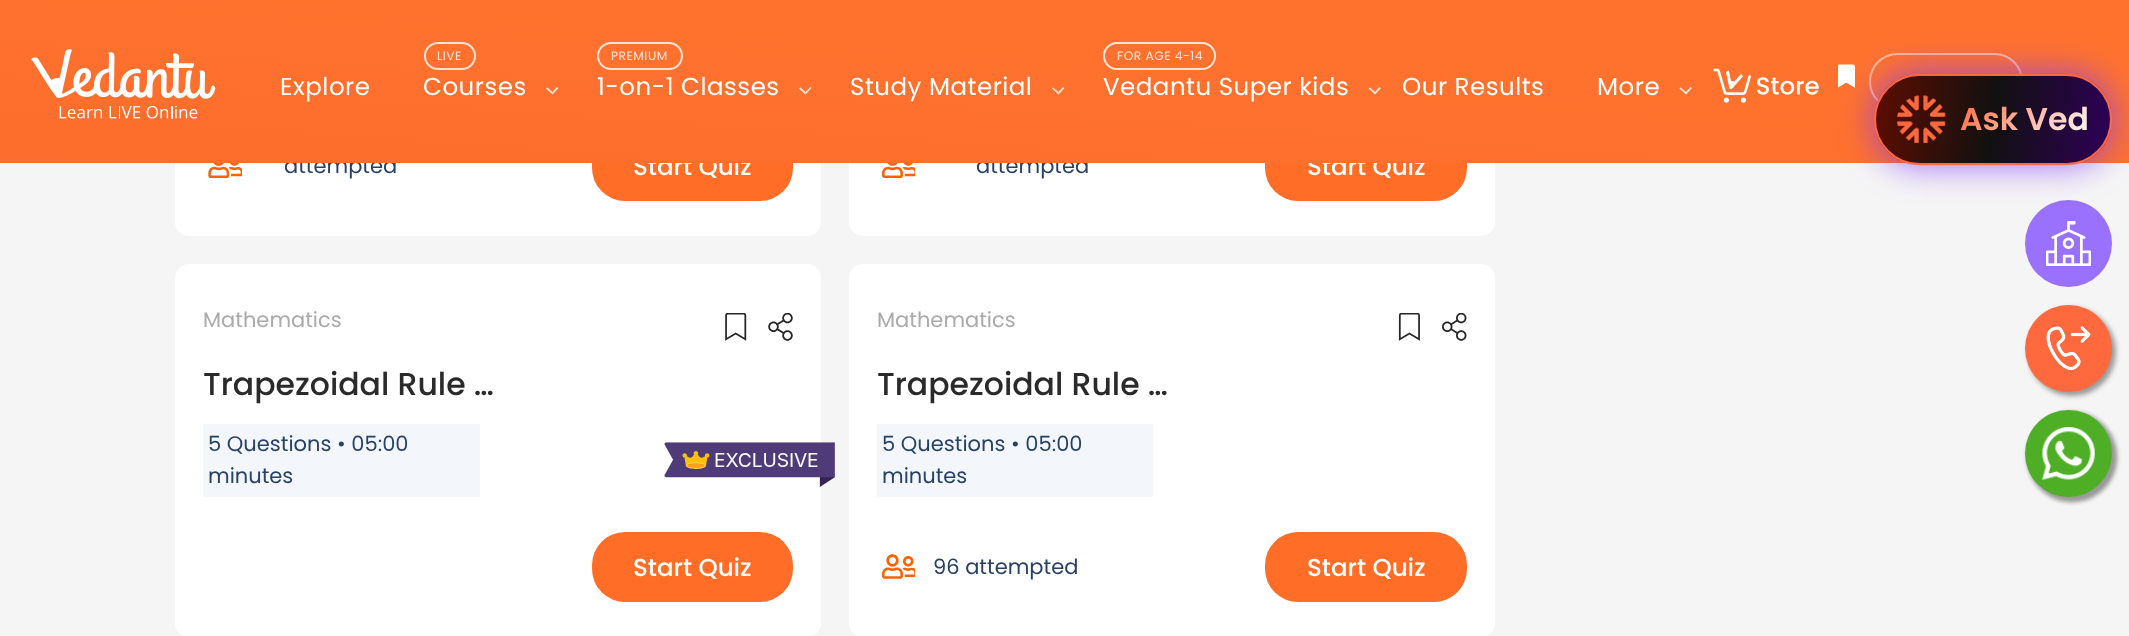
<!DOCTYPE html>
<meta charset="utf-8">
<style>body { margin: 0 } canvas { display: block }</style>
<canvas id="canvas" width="2129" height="636"></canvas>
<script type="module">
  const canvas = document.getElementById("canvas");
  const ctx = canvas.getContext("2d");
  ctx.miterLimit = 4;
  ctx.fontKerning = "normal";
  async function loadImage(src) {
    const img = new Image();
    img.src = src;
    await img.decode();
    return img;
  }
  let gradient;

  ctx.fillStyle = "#f5f5f5";
  ctx.fillRect(0, 0, 2129, 636);
  ctx.fillStyle = "#ffffff";
  ctx.beginPath();
  ctx.roundRect(175, -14, 646, 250, 14);
  ctx.fill();
  ctx.font = "21px Poppins";
  ctx.fillStyle = "#294164";
  ctx.fillText("attempted", 284, 173);
  ctx.fillStyle = "#ff6d26";
  ctx.beginPath();
  ctx.roundRect(592, 131, 201, 70, 33);
  ctx.fill();
  ctx.font = "500 24.5px Poppins";
  ctx.fillStyle = "#ffffff";
  ctx.fillText("Start Quiz", 633, 175);
  ctx.beginPath();
  ctx.roundRect(849, -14, 646, 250, 14);
  ctx.fill();
  ctx.font = "21px Poppins";
  ctx.fillStyle = "#294164";
  ctx.fillText("attempted", 976, 173);
  ctx.fillStyle = "#ff6d26";
  ctx.beginPath();
  ctx.roundRect(1265, 131, 202, 70, 33);
  ctx.fill();
  ctx.font = "500 24.5px Poppins";
  ctx.fillStyle = "#ffffff";
  ctx.fillText("Start Quiz", 1307, 175);
  gradient = ctx.createLinearGradient(989, 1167, 1076, -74);
  gradient.addColorStop(0, "#f55a29");
  gradient.addColorStop(0.92, "#ff722e");
  ctx.fillStyle = gradient;
  ctx.fillRect(0, 0, 2129, 163);
  ctx.drawImage(await loadImage("img1.png"), 31, 49, 185, 70);
  ctx.letterSpacing = "0.5px";
  ctx.font = "24.5px Poppins";
  ctx.fillStyle = "#ffffff";
  ctx.fillText("Explore", 280, 95);
  ctx.beginPath();
  ctx.roundRect(425, 43, 50, 26, 13);
  ctx.strokeStyle = "#ffe2d5";
  ctx.lineWidth = 2;
  ctx.stroke();
  ctx.font = "12.25px Poppins";
  ctx.fillStyle = "#ffe2d5";
  ctx.fillText("LIVE", 437, 60);
  ctx.font = "24.5px Poppins";
  ctx.fillStyle = "#ffffff";
  ctx.fillText("Courses", 423, 95);
  ctx.fillStyle = "#ffeae0";
  ctx.beginPath();
  ctx.moveTo(558.5, 88);
  ctx.lineTo(552.5, 94.5);
  ctx.lineTo(552.5, 92);
  ctx.lineTo(557, 87);
  ctx.closePath();
  ctx.fill();
  ctx.fillStyle = "rgba(255, 255, 255, 0.85)";
  ctx.beginPath();
  ctx.moveTo(552.5, 94.5);
  ctx.lineTo(546, 88.5);
  ctx.lineTo(547.5, 87.5);
  ctx.lineTo(552.5, 92);
  ctx.closePath();
  ctx.fill();
  ctx.beginPath();
  ctx.roundRect(598, 43, 84, 26, 13);
  ctx.strokeStyle = "#ffe3d5";
  ctx.stroke();
  ctx.font = "12.25px Poppins";
  ctx.fillStyle = "#ffe2d5";
  ctx.fillText("PREMIUM", 611, 60);
  ctx.font = "24.5px Poppins";
  ctx.fillStyle = "#ffffff";
  ctx.fillText("1-on-1 Classes", 597, 95);
  ctx.fillStyle = "#ffeae0";
  ctx.beginPath();
  ctx.moveTo(811.5, 88);
  ctx.lineTo(805.5, 94.5);
  ctx.lineTo(805.5, 92);
  ctx.lineTo(810.5, 87);
  ctx.closePath();
  ctx.fill();
  ctx.fillStyle = "rgba(255, 255, 255, 0.85)";
  ctx.beginPath();
  ctx.moveTo(805.5, 94.5);
  ctx.lineTo(799, 88.5);
  ctx.lineTo(800.5, 87.5);
  ctx.lineTo(805.5, 92);
  ctx.closePath();
  ctx.fill();
  ctx.fillStyle = "#ffffff";
  ctx.fillText("Study Material", 850, 95);
  ctx.fillStyle = "#ffeae0";
  ctx.beginPath();
  ctx.moveTo(1064.5, 88);
  ctx.lineTo(1058.5, 94.5);
  ctx.lineTo(1058.5, 92);
  ctx.lineTo(1063, 87);
  ctx.closePath();
  ctx.fill();
  ctx.fillStyle = "rgba(255, 255, 255, 0.85)";
  ctx.beginPath();
  ctx.moveTo(1058.5, 94.5);
  ctx.lineTo(1052, 88.5);
  ctx.lineTo(1053, 87.5);
  ctx.lineTo(1058.5, 92);
  ctx.closePath();
  ctx.fill();
  ctx.beginPath();
  ctx.roundRect(1104, 43, 111, 26, 13);
  ctx.stroke();
  ctx.font = "12.25px Poppins";
  ctx.fillStyle = "#ffe2d5";
  ctx.fillText("FOR AGE 4-14", 1117, 60);
  ctx.font = "24.5px Poppins";
  ctx.fillStyle = "#ffffff";
  ctx.fillText("Vedantu Super kids", 1103, 95);
  ctx.fillStyle = "#ffeae0";
  ctx.beginPath();
  ctx.moveTo(1381, 88);
  ctx.lineTo(1375, 94.5);
  ctx.lineTo(1375, 92);
  ctx.lineTo(1379.5, 87);
  ctx.closePath();
  ctx.moveTo(1375, 94.5);
  ctx.lineTo(1368.5, 88.5);
  ctx.lineTo(1370, 87.5);
  ctx.lineTo(1375, 92);
  ctx.closePath();
  ctx.fill();
  ctx.fillStyle = "#ffffff";
  ctx.fillText("Our Results", 1402, 95);
  ctx.fillText("More", 1597, 95);
  ctx.fillStyle = "#ffeae0";
  ctx.beginPath();
  ctx.moveTo(1692, 88);
  ctx.lineTo(1686, 94.5);
  ctx.lineTo(1686, 92);
  ctx.lineTo(1690.5, 87);
  ctx.closePath();
  ctx.moveTo(1686, 94.5);
  ctx.lineTo(1679.5, 88.5);
  ctx.lineTo(1680.5, 87.5);
  ctx.lineTo(1686, 92);
  ctx.closePath();
  ctx.fill();
  ctx.drawImage(await loadImage("img2.png"), 1713, 68, 106, 35);
  ctx.drawImage(await loadImage("img3.png"), 1838, 64, 17, 24);
  ctx.beginPath();
  ctx.roundRect(1870, 54, 152, 55, 27.5);
  ctx.strokeStyle = "#ffb897";
  ctx.stroke();
  ctx.drawImage(await loadImage("img4.png"), 208, 163, 34, 15);
  ctx.drawImage(await loadImage("img5.png"), 882, 163, 33, 15);
  ctx.fillStyle = "#ffffff";
  ctx.beginPath();
  ctx.roundRect(175, 264, 646, 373, 14);
  ctx.fill();
  ctx.letterSpacing = "0px";
  ctx.font = "21px Poppins";
  ctx.fillStyle = "#aaaaaa";
  ctx.fillText("Mathematics", 203, 327);
  ctx.drawImage(await loadImage("img6.png"), 725, 313, 22, 28);
  ctx.drawImage(await loadImage("img7.png"), 768, 313, 25, 28);
  ctx.font = "500 31.5px Poppins";
  ctx.fillStyle = "#2a2a2a";
  ctx.fillText("Trapezoidal Rule …", 203, 395);
  ctx.fillStyle = "#f3f7fc";
  ctx.fillRect(203, 424, 277, 73);
  ctx.font = "21px Poppins";
  ctx.fillStyle = "#294164";
  ctx.fillText("5 Questions • 05:00", 208, 451);
  ctx.fillText("minutes", 208, 483);
  ctx.drawImage(await loadImage("img8.png"), 664, 442, 171, 45);
  ctx.fillStyle = "#ff6d26";
  ctx.beginPath();
  ctx.roundRect(592, 532, 201, 70, 33);
  ctx.fill();
  ctx.font = "500 24.5px Poppins";
  ctx.fillStyle = "#ffffff";
  ctx.fillText("Start Quiz", 633, 576);
  ctx.beginPath();
  ctx.roundRect(849, 264, 646, 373, 14);
  ctx.fill();
  ctx.font = "21px Poppins";
  ctx.fillStyle = "#aaaaaa";
  ctx.fillText("Mathematics", 877, 327);
  ctx.drawImage(await loadImage("img9.png"), 1398, 313, 22, 28);
  ctx.drawImage(await loadImage("img10.png"), 1442, 313, 25, 28);
  ctx.font = "500 31.5px Poppins";
  ctx.fillStyle = "#2a2a2a";
  ctx.fillText("Trapezoidal Rule …", 877, 395);
  ctx.fillStyle = "#f3f7fc";
  ctx.fillRect(877, 424, 276, 73);
  ctx.font = "21px Poppins";
  ctx.fillStyle = "#294164";
  ctx.fillText("5 Questions • 05:00", 882, 451);
  ctx.fillText("minutes", 882, 483);
  ctx.drawImage(await loadImage("img11.png"), 882, 554, 33, 25);
  ctx.fillText("96 attempted", 933, 574);
  ctx.fillStyle = "#ff6d26";
  ctx.beginPath();
  ctx.roundRect(1265, 532, 202, 70, 33);
  ctx.fill();
  ctx.font = "500 24.5px Poppins";
  ctx.fillStyle = "#ffffff";
  ctx.fillText("Start Quiz", 1307, 576);
  ctx.fillStyle = "#9971fd";
  ctx.beginPath();
  ctx.arc(2068.5, 243.5, 43.5, 0, Math.PI * 2);
  ctx.fill();
  ctx.fillStyle = "rgba(129, 56, 248, 0.75)";
  ctx.filter = "blur(17.5px)";
  ctx.beginPath();
  ctx.roundRect(1874, 74, 238, 91, 45.5);
  ctx.fill();
  ctx.filter = "none";
  ctx.save();
  ctx.beginPath();
  ctx.roundRect(1874, 74, 238, 91, 45.5);
  ctx.clip();
  gradient = ctx.createLinearGradient(1872, 104, 2114, 134);
  gradient.addColorStop(0, "#5e0d00");
  gradient.addColorStop(0.5, "#111111");
  gradient.addColorStop(1, "#2f0059");
  ctx.fillStyle = gradient;
  ctx.fillRect(1876, 75, 235, 88);
  ctx.restore();
  ctx.beginPath();
  ctx.roundRect(1875, 75, 236, 89, 44.5);
  ctx.strokeStyle = "#ff693d";
  ctx.stroke();
  ctx.drawImage(await loadImage("img12.png"), 1897, 95, 49, 48);
  ctx.font = "600 31.5px Poppins";
  gradient = ctx.createLinearGradient(1974, 78, 2075, 160);
  gradient.addColorStop(0, "#ff693d");
  gradient.addColorStop(1, "#ffffff");
  ctx.fillStyle = gradient;
  ctx.fillText("Ask Ved", 1960, 130);
  ctx.drawImage(await loadImage("img13.png"), 2046, 221, 45, 45);
  ctx.fillStyle = "#999999";
  ctx.filter = "blur(2.5px)";
  ctx.beginPath();
  ctx.roundRect(2028, 308, 88, 88, 44);
  ctx.fill();
  ctx.filter = "none";
  ctx.fillStyle = "#ff693d";
  ctx.beginPath();
  ctx.arc(2068.5, 348.5, 43.5, 0, Math.PI * 2);
  ctx.fill();
  ctx.drawImage(await loadImage("img14.png"), 2046, 326, 45, 45);
  ctx.fillStyle = "#999999";
  ctx.filter = "blur(2.5px)";
  ctx.beginPath();
  ctx.roundRect(2028, 413, 88, 88, 44);
  ctx.fill();
  ctx.filter = "none";
  ctx.filter = "blur(2.5px)";
  ctx.beginPath();
  ctx.roundRect(2028, 413, 88, 88, 44);
  ctx.fill();
  ctx.filter = "none";
  ctx.fillStyle = "#4eaf26";
  ctx.beginPath();
  ctx.arc(2068.5, 453.5, 43.5, 0, Math.PI * 2);
  ctx.fill();
  ctx.drawImage(await loadImage("img15.png"), 2042, 427, 53, 54);
</script>
